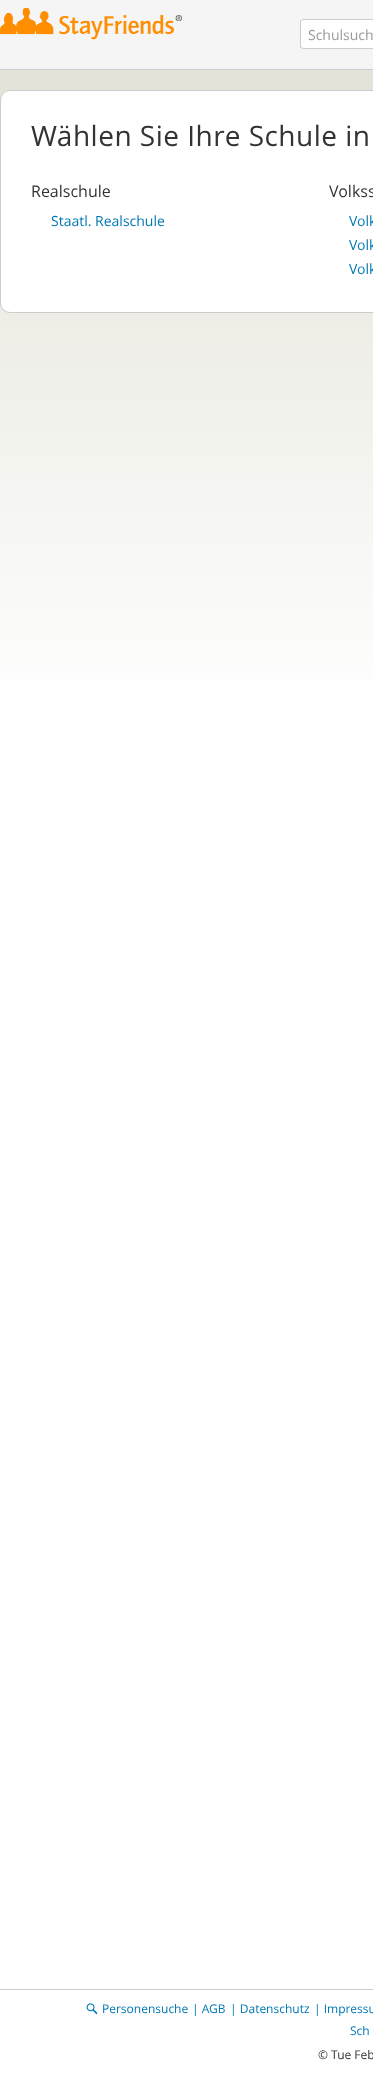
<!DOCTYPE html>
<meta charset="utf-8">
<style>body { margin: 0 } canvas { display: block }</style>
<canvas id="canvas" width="373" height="2074"></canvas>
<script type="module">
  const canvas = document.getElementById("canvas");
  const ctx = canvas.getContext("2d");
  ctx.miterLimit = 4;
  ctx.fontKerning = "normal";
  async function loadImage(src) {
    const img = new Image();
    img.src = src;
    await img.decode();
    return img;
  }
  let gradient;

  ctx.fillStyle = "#ffffff";
  ctx.fillRect(0, 0, 373, 2074);
  gradient = ctx.createLinearGradient(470, 0, 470, 2074);
  gradient.addColorStop(0.04, "#e4e3d8");
  gradient.addColorStop(0.34, "#fefefe");
  ctx.fillStyle = gradient;
  ctx.fillRect(0, 70, 373, 611);
  ctx.fillStyle = "#f5f5f5";
  ctx.fillRect(0, 0, 373, 69);
  ctx.fillStyle = "#cccccc";
  ctx.fillRect(0, 69, 373, 1);
  ctx.drawImage(await loadImage("img1.png"), 0, 8, 182, 32);
  ctx.fillStyle = "#ffffff";
  ctx.beginPath();
  ctx.moveTo(303, 19);
  ctx.lineTo(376, 19);
  ctx.lineTo(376, 49);
  ctx.lineTo(303, 49);
  ctx.bezierCurveTo(301.5, 49, 300, 47.5, 300, 46);
  ctx.lineTo(300, 22);
  ctx.bezierCurveTo(300, 20.5, 301.5, 19, 303, 19);
  ctx.closePath();
  ctx.fill();
  ctx.fillStyle = "#cccccc";
  ctx.beginPath();
  ctx.moveTo(303, 19);
  ctx.lineTo(301, 20);
  ctx.lineTo(302, 21);
  ctx.lineTo(303, 20);
  ctx.lineTo(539, 20);
  ctx.lineTo(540, 19);
  ctx.closePath();
  ctx.fill();
  ctx.beginPath();
  ctx.moveTo(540, 49);
  ctx.lineTo(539, 48);
  ctx.lineTo(303, 48);
  ctx.lineTo(302, 47);
  ctx.lineTo(301, 48);
  ctx.lineTo(303, 49);
  ctx.closePath();
  ctx.fill();
  ctx.beginPath();
  ctx.moveTo(300, 22);
  ctx.lineTo(300, 46);
  ctx.bezierCurveTo(300, 47, 300, 48, 301, 48);
  ctx.lineTo(301.5, 47.5);
  ctx.bezierCurveTo(301, 47, 301, 46.5, 301, 46);
  ctx.lineTo(301, 22);
  ctx.bezierCurveTo(301, 21.5, 301, 21, 301.5, 20.5);
  ctx.lineTo(301, 20);
  ctx.bezierCurveTo(300, 20, 300, 21, 300, 22);
  ctx.closePath();
  ctx.fill();
  ctx.font = "14px Open Sans";
  ctx.fillStyle = "#999999";
  ctx.fillText("Schulsuch", 308, 40);
  ctx.fillStyle = "#ffffff";
  ctx.beginPath();
  ctx.roundRect(0.5, 90.5, 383, 222, 9.5);
  ctx.fill();
  ctx.strokeStyle = "#cccccc";
  ctx.stroke();
  ctx.letterSpacing = "0.5px";
  ctx.font = "28px Open Sans";
  ctx.fillStyle = "#333333";
  ctx.fillText("Wählen Sie Ihre Schule in", 31, 146);
  ctx.letterSpacing = "0px";
  ctx.font = "16px Open Sans";
  ctx.fillText("Realschule", 31, 197);
  ctx.font = "14px Open Sans";
  ctx.fillStyle = "#0077b2";
  ctx.fillText("Staatl. Realschule", 51, 226);
  ctx.font = "16px Open Sans";
  ctx.fillStyle = "#333333";
  ctx.fillText("Volkss", 329, 197);
  ctx.font = "14px Open Sans";
  ctx.fillStyle = "#0077b2";
  ctx.fillText("Volk", 349, 226);
  ctx.fillText("Volk", 349, 250);
  ctx.fillText("Volk", 349, 274);
  ctx.fillStyle = "#cccccc";
  ctx.fillRect(0, 1989, 373, 1);
  ctx.drawImage(await loadImage("img2.png"), 86, 2003, 12, 12);
  ctx.font = "12px Open Sans";
  ctx.fillStyle = "#0077b2";
  ctx.fillText("Personensuche", 102, 2013);
  ctx.fillText("| AGB", 192, 2013);
  ctx.fillText("| Datenschutz", 230, 2013);
  ctx.fillText("| Impressu", 314, 2013);
  ctx.fillText("Sch", 350, 2035);
  ctx.fillStyle = "#333333";
  ctx.fillText("© Tue Feb", 318, 2059);
</script>
